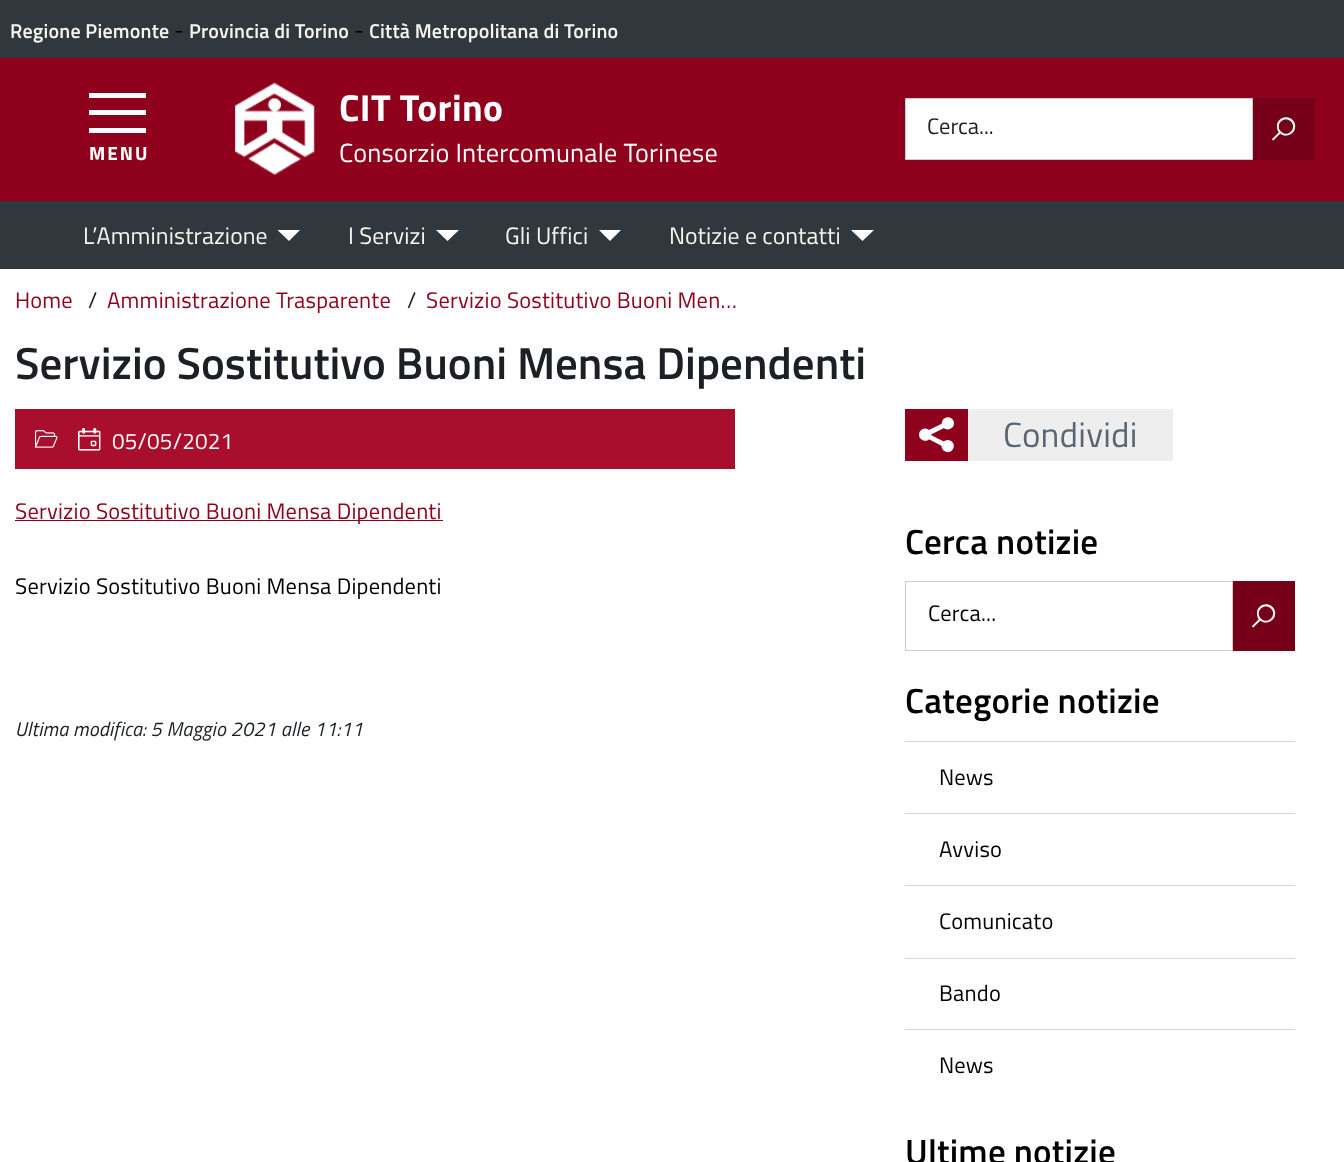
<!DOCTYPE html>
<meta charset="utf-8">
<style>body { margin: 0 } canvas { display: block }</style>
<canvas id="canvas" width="1344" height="1162"></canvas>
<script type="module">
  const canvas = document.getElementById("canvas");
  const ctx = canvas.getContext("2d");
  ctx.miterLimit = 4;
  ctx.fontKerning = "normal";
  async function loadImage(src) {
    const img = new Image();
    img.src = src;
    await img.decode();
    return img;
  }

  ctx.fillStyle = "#ffffff";
  ctx.fillRect(0, 0, 1344, 1162);
  ctx.fillStyle = "#30373d";
  ctx.fillRect(0, 0, 1344, 58);
  ctx.letterSpacing = "0.2px";
  ctx.font = "600 20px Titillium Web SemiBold";
  ctx.fillStyle = "#f5f5f0";
  ctx.fillText("Regione Piemonte", 10, 38);
  ctx.letterSpacing = "0px";
  ctx.font = "22.5px Titillium Web";
  ctx.fillStyle = "#000000";
  ctx.fillText("-", 174, 38);
  ctx.letterSpacing = "0.2px";
  ctx.font = "600 20px Titillium Web SemiBold";
  ctx.fillStyle = "#f5f5f0";
  ctx.fillText("Provincia di Torino", 189, 38);
  ctx.letterSpacing = "0px";
  ctx.font = "22.5px Titillium Web";
  ctx.fillStyle = "#000000";
  ctx.fillText("-", 354, 38);
  ctx.letterSpacing = "0.2px";
  ctx.font = "600 20px Titillium Web SemiBold";
  ctx.fillStyle = "#f5f5f0";
  ctx.fillText("Città Metropolitana di Torino", 369, 38);
  ctx.fillStyle = "#8f001d";
  ctx.fillRect(0, 58, 1344, 143);
  ctx.drawImage(await loadImage("img1.png"), 235, 82, 80, 94);
  ctx.letterSpacing = "0.4px";
  ctx.font = "bold 37.5px Titillium Web";
  ctx.fillStyle = "#ffffff";
  ctx.fillText("CIT Torino", 339, 121);
  ctx.letterSpacing = "0.2px";
  ctx.font = "26.25px Titillium Web";
  ctx.fillText("Consorzio Intercomunale Torinese", 339, 162);
  ctx.beginPath();
  ctx.rect(905.5, 98.5, 347, 61);
  ctx.fill();
  ctx.strokeStyle = "#cccccc";
  ctx.stroke();
  ctx.fillStyle = "#750017";
  ctx.fillRect(1253, 98, 62, 62);
  ctx.letterSpacing = "0px";
  ctx.font = "bold 22.5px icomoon";
  ctx.fillStyle = "#ffffff";
  ctx.fillText("🔍", 1272, 139);
  ctx.font = "22.5px Titillium Web";
  ctx.fillStyle = "#1c2024";
  ctx.fillText("Cerca...", 927, 134);
  ctx.fillStyle = "#ffffff";
  ctx.fillRect(89, 110, 57, 5);
  ctx.fillRect(89, 93, 57, 5);
  ctx.fillRect(89, 128, 57, 5);
  ctx.letterSpacing = "2px";
  ctx.font = "bold 19px Titillium Web";
  ctx.fillText("MENU", 89, 160);
  ctx.fillStyle = "#30373d";
  ctx.fillRect(0, 201, 1344, 68);
  ctx.letterSpacing = "0.1px";
  ctx.font = "23.75px Titillium Web";
  ctx.fillStyle = "#f5f5f0";
  ctx.fillText("L’Amministrazione", 83, 244);
  ctx.fillStyle = "#ffffff";
  ctx.beginPath();
  ctx.moveTo(277.5, 230);
  ctx.lineTo(300, 230);
  ctx.lineTo(289, 241);
  ctx.closePath();
  ctx.fill();
  ctx.fillStyle = "#f5f5f0";
  ctx.fillText("I Servizi", 348, 244);
  ctx.fillStyle = "#ffffff";
  ctx.beginPath();
  ctx.moveTo(436, 230);
  ctx.lineTo(459, 230);
  ctx.lineTo(447.5, 241);
  ctx.closePath();
  ctx.fill();
  ctx.fillStyle = "#f5f5f0";
  ctx.fillText("Gli Uffici", 505, 244);
  ctx.fillStyle = "#ffffff";
  ctx.beginPath();
  ctx.moveTo(599, 230);
  ctx.lineTo(621, 230);
  ctx.lineTo(610, 241);
  ctx.closePath();
  ctx.fill();
  ctx.fillStyle = "#f5f5f0";
  ctx.fillText("Notizie e contatti", 669, 244);
  ctx.fillStyle = "#ffffff";
  ctx.beginPath();
  ctx.moveTo(851, 230);
  ctx.lineTo(874, 230);
  ctx.lineTo(862.5, 241);
  ctx.closePath();
  ctx.fill();
  ctx.letterSpacing = "0.2px";
  ctx.font = "22.5px Titillium Web";
  ctx.fillStyle = "#8f001d";
  ctx.fillText("Home", 15, 308);
  ctx.letterSpacing = "0px";
  ctx.fillStyle = "#1c2024";
  ctx.fillText("/", 88, 308);
  ctx.letterSpacing = "0.2px";
  ctx.fillStyle = "#8f001d";
  ctx.fillText("Amministrazione Trasparente", 107, 308);
  ctx.letterSpacing = "0px";
  ctx.fillStyle = "#1c2024";
  ctx.fillText("/", 407, 308);
  ctx.letterSpacing = "0.2px";
  ctx.fillStyle = "#8f001d";
  ctx.fillText("Servizio Sostitutivo Buoni Men…", 426, 308);
  ctx.letterSpacing = "0px";
  ctx.font = "600 45px Titillium Web SemiBold";
  ctx.fillStyle = "#1c2024";
  ctx.fillText("Servizio Sostitutivo Buoni Mensa Dipendenti", 15, 379);
  ctx.fillStyle = "#aa0e2d";
  ctx.fillRect(15, 409, 720, 60);
  ctx.drawImage(await loadImage("img2.png"), 35, 430, 23, 18);
  ctx.letterSpacing = "0.2px";
  ctx.font = "22.5px icomoon";
  ctx.fillStyle = "#ffffff";
  ctx.fillText("📅", 78, 449);
  ctx.font = "22.5px Titillium Web";
  ctx.fillText("05/05/2021", 112, 449);
  ctx.fillStyle = "#8f001d";
  ctx.fillRect(15, 520, 428, 1);
  ctx.fillText("Servizio Sostitutivo Buoni Mensa Dipendenti", 15, 519);
  ctx.fillStyle = "#000000";
  ctx.fillText("Servizio Sostitutivo Buoni Mensa Dipendenti", 15, 594);
  ctx.font = "italic 20px Titillium Web";
  ctx.fillStyle = "#1c2024";
  ctx.fillText("Ultima modifica: 5 Maggio 2021 alle 11:11", 15, 736);
  ctx.fillStyle = "#eeeeee";
  ctx.fillRect(968, 409, 205, 52);
  ctx.fillStyle = "#8f001d";
  ctx.fillRect(905, 409, 63, 52);
  ctx.font = "35px icomoon";
  ctx.fillStyle = "#ffffff";
  ctx.fillText("📢", 919, 450);
  ctx.font = "35px Titillium Web";
  ctx.fillStyle = "#5a6772";
  ctx.fillText("Condividi", 1003, 447);
  ctx.font = "600 35px Titillium Web SemiBold";
  ctx.fillStyle = "#000000";
  ctx.fillText("Cerca notizie", 905, 554);
  ctx.strokeRect(905.5, 581.5, 327, 69);
  ctx.fillStyle = "#750017";
  ctx.fillRect(1233, 581, 62, 70);
  ctx.letterSpacing = "0px";
  ctx.font = "bold 22.5px icomoon";
  ctx.fillStyle = "#ffffff";
  ctx.fillText("🔍", 1252, 626);
  ctx.letterSpacing = "0.2px";
  ctx.font = "22.5px Titillium Web";
  ctx.fillStyle = "#000000";
  ctx.fillText("Cerca...", 928, 621);
  ctx.font = "600 35px Titillium Web SemiBold";
  ctx.fillText("Categorie notizie", 905, 713);
  ctx.fillStyle = "#d8d8d8";
  ctx.fillRect(905, 741, 390, 1);
  ctx.font = "22.5px Titillium Web";
  ctx.fillStyle = "#000000";
  ctx.fillText("News", 939, 785);
  ctx.fillStyle = "#d8d8d8";
  ctx.fillRect(905, 813, 390, 1);
  ctx.fillStyle = "#000000";
  ctx.fillText("Avviso", 939, 857);
  ctx.fillStyle = "#d8d8d8";
  ctx.fillRect(905, 885, 390, 1);
  ctx.fillStyle = "#000000";
  ctx.fillText("Comunicato", 939, 929);
  ctx.fillStyle = "#d8d8d8";
  ctx.fillRect(905, 958, 390, 1);
  ctx.fillStyle = "#000000";
  ctx.fillText("Bando", 939, 1001);
  ctx.fillStyle = "#d8d8d8";
  ctx.fillRect(905, 1029, 390, 1);
  ctx.fillStyle = "#000000";
  ctx.fillText("News", 939, 1073);
  ctx.font = "600 35px Titillium Web SemiBold";
  ctx.fillText("Ultime notizie", 905, 1164);
</script>
